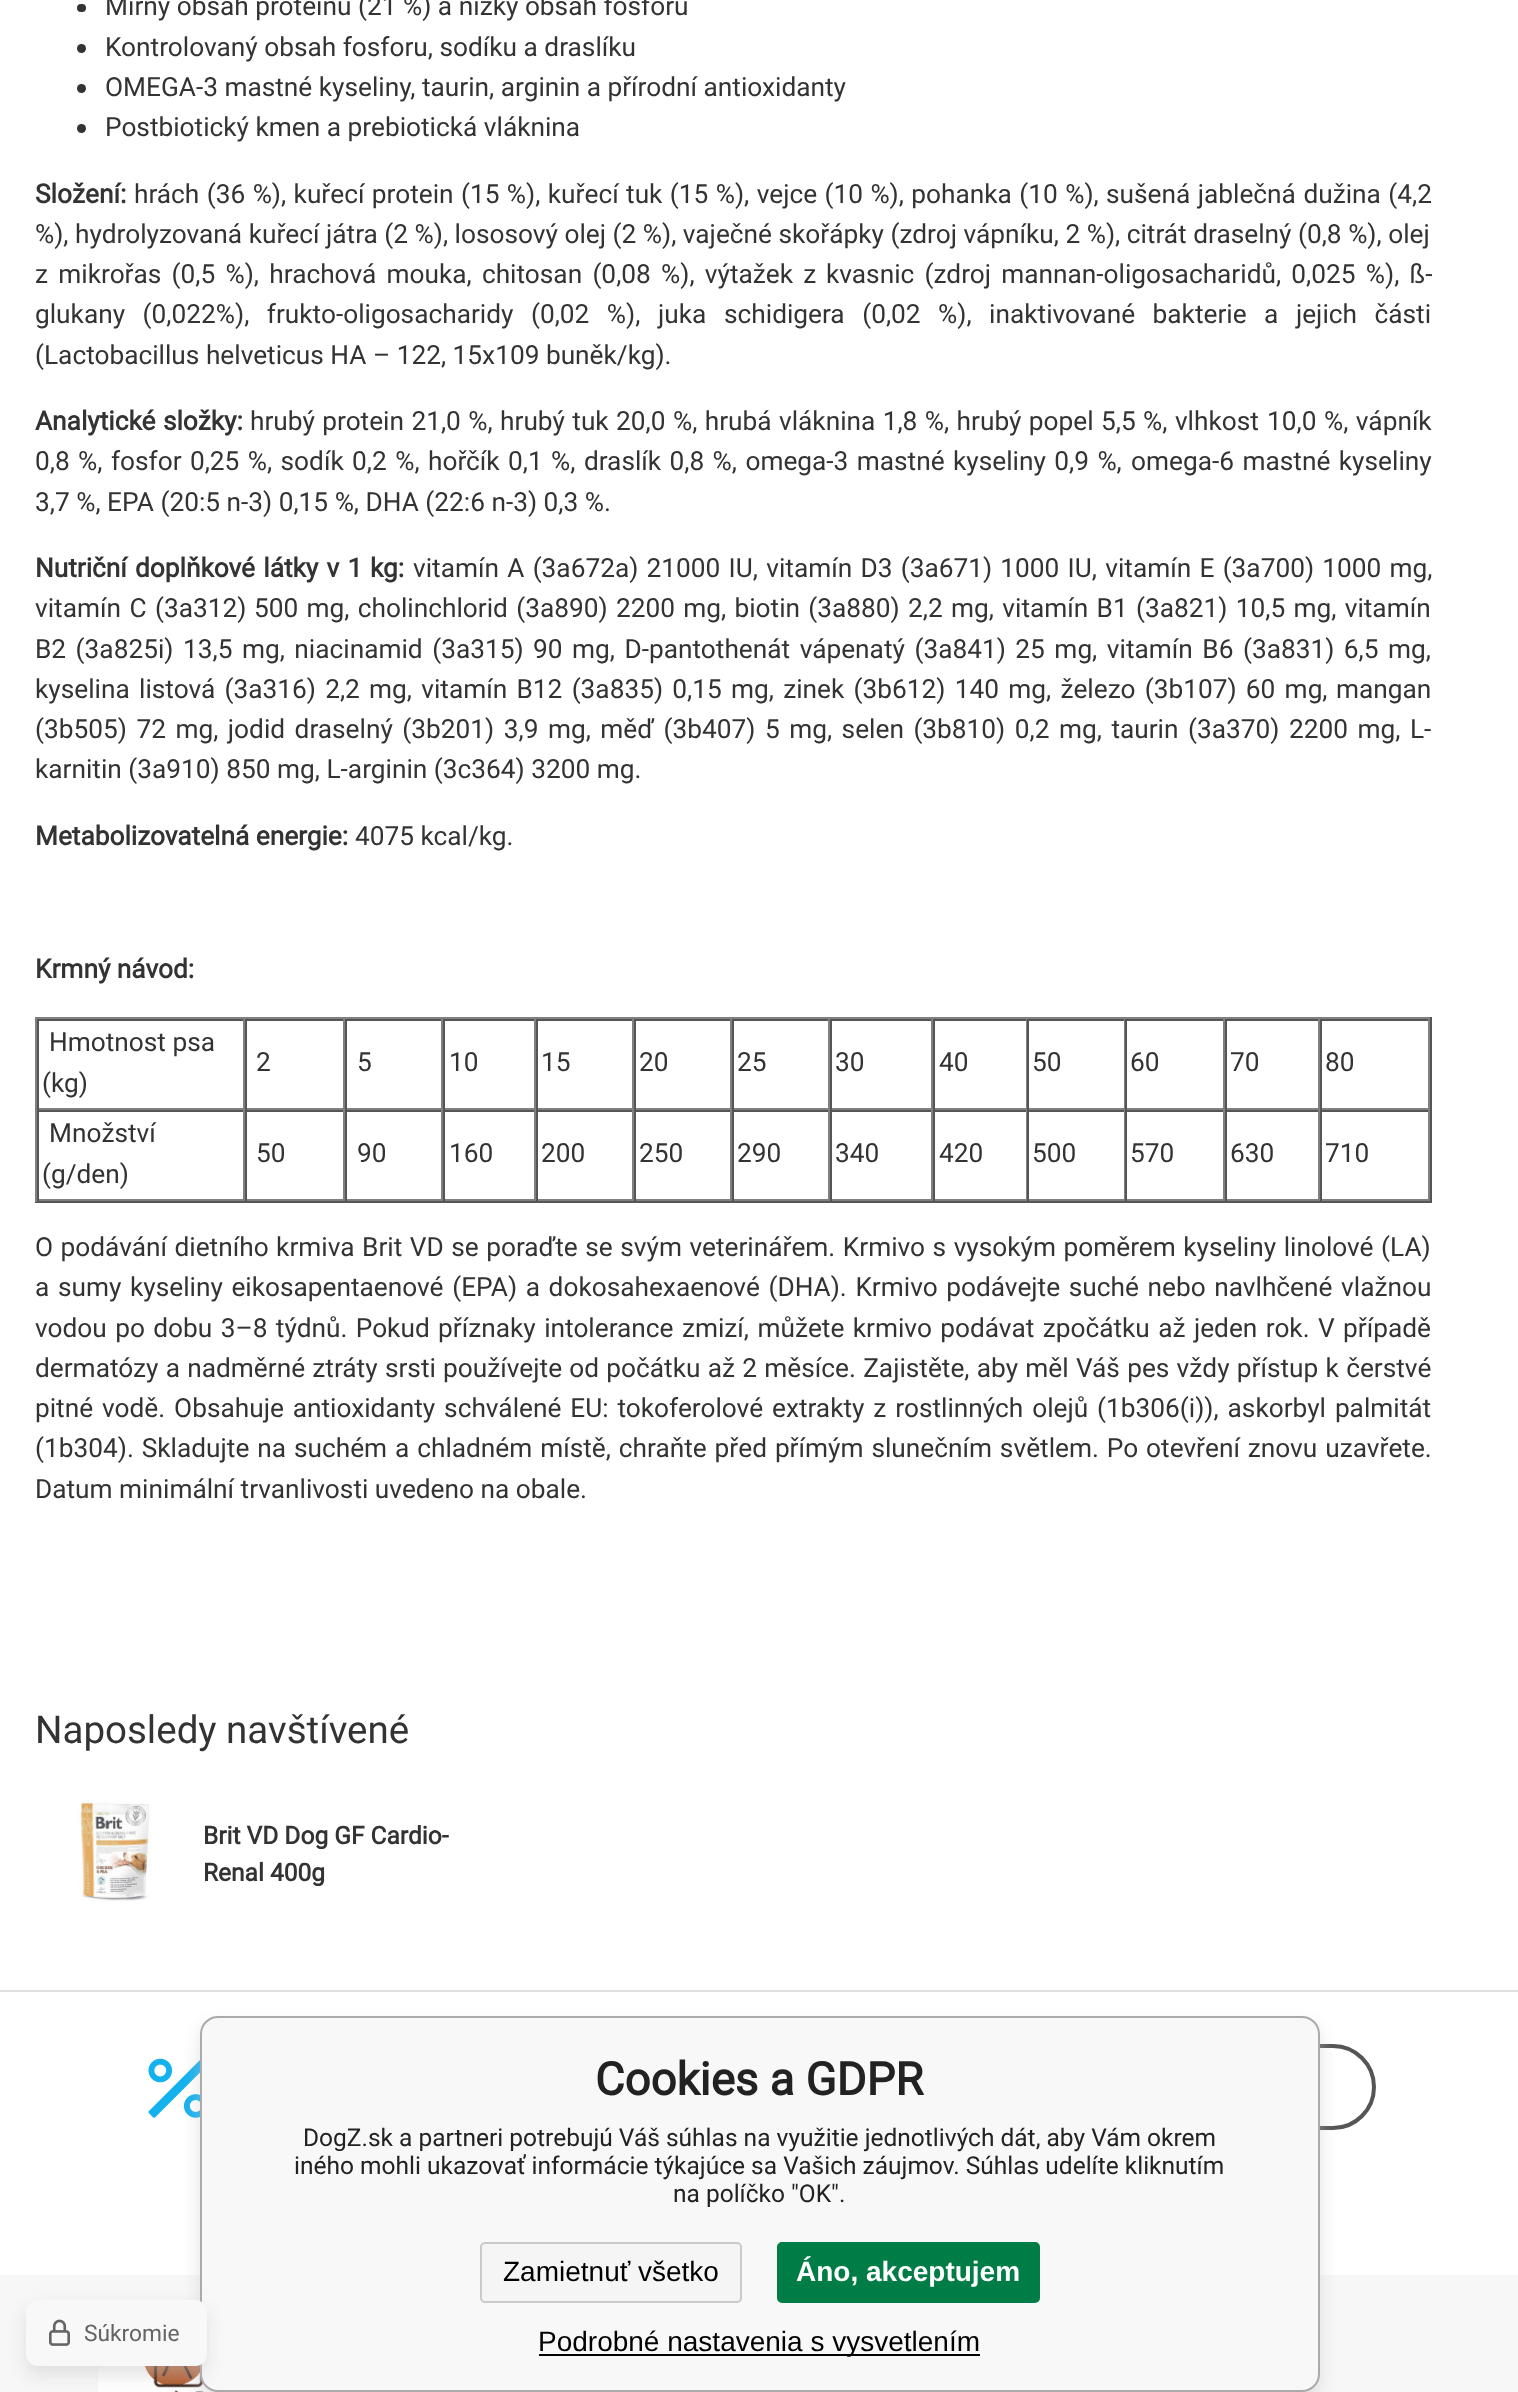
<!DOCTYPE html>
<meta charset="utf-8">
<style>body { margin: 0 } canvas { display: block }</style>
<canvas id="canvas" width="1518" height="2392"></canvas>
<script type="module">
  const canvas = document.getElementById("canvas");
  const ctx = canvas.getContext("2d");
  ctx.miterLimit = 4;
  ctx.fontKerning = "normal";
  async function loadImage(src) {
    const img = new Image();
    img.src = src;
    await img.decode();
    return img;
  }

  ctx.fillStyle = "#ffffff";
  ctx.fillRect(0, 0, 1518, 2392);
  ctx.fillStyle = "#333333";
  ctx.beginPath();
  ctx.roundRect(77, 4, 9, 8, 4);
  ctx.fill();
  ctx.font = "26.25px Roboto";
  ctx.fillText("Mírný obsah proteinu (21 %) a nízký obsah fosforu", 105, 15);
  ctx.beginPath();
  ctx.arc(81.5, 48.5, 4.5, 0, Math.PI * 2);
  ctx.fill();
  ctx.fillText("Kontrolovaný obsah fosforu, sodíku a draslíku", 105, 56);
  ctx.beginPath();
  ctx.arc(81.5, 88.5, 4.5, 0, Math.PI * 2);
  ctx.fill();
  ctx.fillText("OMEGA-3 mastné kyseliny, taurin, arginin a přírodní antioxidanty", 105, 96);
  ctx.beginPath();
  ctx.arc(81.5, 128.5, 4.5, 0, Math.PI * 2);
  ctx.fill();
  ctx.fillText("Postbiotický kmen a prebiotická vláknina", 105, 136);
  ctx.font = "bold 26.25px Roboto";
  ctx.fillText("Složení:", 35, 203);
  ctx.wordSpacing = "0.9px";
  ctx.font = "26.25px Roboto";
  ctx.fillText("hrách (36 %), kuřecí protein (15 %), kuřecí tuk (15 %), vejce (10 %), pohanka (10 %),", 134, 203);
  ctx.wordSpacing = "1px";
  ctx.fillText("sušená jablečná dužina (4,2", 1106, 203);
  ctx.wordSpacing = "0px";
  ctx.fillText("%), hydrolyzovaná kuřecí játra (2 %), lososový olej (2 %), vaječné skořápky (zdroj vápníku, 2 %), citrát draselný (0,8 %), olej", 35, 243);
  ctx.wordSpacing = "3.75px";
  ctx.fillText("z mikrořas (0,5 %), hrachová mouka, chitosan (0,08 %), výtažek z", 35, 283);
  ctx.fillText("kvasnic (zdroj mannan-oligosacharidů, 0,025 %), ß-", 826, 283);
  ctx.wordSpacing = "11px";
  ctx.fillText("glukany (0,022%), frukto-oligosacharidy (0,02 %), juka", 35, 323);
  ctx.fillText("schidigera (0,02 %), inaktivované bakterie a jejich části", 724, 323);
  ctx.wordSpacing = "0px";
  ctx.fillText("(Lactobacillus helveticus HA – 122, 15x109 buněk/kg).", 35, 364);
  ctx.wordSpacing = "1px";
  ctx.font = "bold 26.25px Roboto";
  ctx.fillText("Analytické složky:", 35, 430);
  ctx.wordSpacing = "0.9px";
  ctx.font = "26.25px Roboto";
  ctx.fillText("hrubý protein 21,0 %, hrubý tuk 20,0 %, hrubá vláknina 1,8 %, hrubý popel 5,5 %, vlhkost", 250, 430);
  ctx.wordSpacing = "1px";
  ctx.fillText("10,0 %, vápník", 1267, 430);
  ctx.wordSpacing = "1.9px";
  ctx.fillText("0,8 %, fosfor 0,25 %, sodík 0,2 %, hořčík 0,1 %, draslík 0,8 %, omega-3 mastné kyseliny 0,9 %,", 35, 470);
  ctx.wordSpacing = "2px";
  ctx.fillText("omega-6 mastné kyseliny", 1131, 470);
  ctx.wordSpacing = "0px";
  ctx.fillText("3,7 %, EPA (20:5 n-3) 0,15 %, DHA (22:6 n-3) 0,3 %.", 35, 511);
  ctx.wordSpacing = "1.75px";
  ctx.font = "bold 26.25px Roboto";
  ctx.fillText("Nutriční doplňkové látky v 1", 35, 577);
  ctx.wordSpacing = "0px";
  ctx.fillText("kg:", 370, 577);
  ctx.wordSpacing = "1.75px";
  ctx.font = "26.25px Roboto";
  ctx.fillText("vitamín A (3a672a) 21000 IU, vitamín D3 (3a671) 1000 IU, vitamín E (3a700) 1000 mg,", 413, 577);
  ctx.wordSpacing = "2px";
  ctx.fillText("vitamín C (3a312)", 35, 617);
  ctx.wordSpacing = "1.8px";
  ctx.fillText("500 mg, cholinchlorid (3a890) 2200 mg, biotin (3a880) 2,2 mg, vitamín B1 (3a821) 10,5 mg, vitamín", 254, 617);
  ctx.wordSpacing = "3px";
  ctx.fillText("B2 (3a825i)", 35, 658);
  ctx.fillText("13,5 mg, niacinamid (3a315) 90 mg, D-pantothenát vápenatý (3a841) 25 mg, vitamín B6 (3a831) 6,5 mg,", 183, 658);
  ctx.wordSpacing = "2.75px";
  ctx.fillText("kyselina listová (3a316) 2,2 mg, vitamín B12 (3a835) 0,15 mg, zinek (3b612) 140 mg, železo (3b107) 60 mg,", 35, 698);
  ctx.wordSpacing = "0px";
  ctx.fillText("mangan", 1336, 698);
  ctx.wordSpacing = "3px";
  ctx.fillText("(3b505) 72 mg, jodid draselný (3b201) 3,9 mg, měď (3b407) 5 mg, selen (3b810) 0,2 mg, taurin", 35, 738);
  ctx.fillText("(3a370) 2200 mg, L-", 1188, 738);
  ctx.wordSpacing = "0px";
  ctx.fillText("karnitin (3a910) 850 mg, L-arginin (3c364) 3200 mg.", 35, 778);
  ctx.font = "bold 26.25px Roboto";
  ctx.fillText("Metabolizovatelná energie:", 35, 845);
  ctx.font = "26.25px Roboto";
  ctx.fillText("4075 kcal/kg.", 355, 845);
  ctx.font = "bold 26.25px Roboto";
  ctx.fillText("Krmný návod:", 35, 978);
  ctx.fillStyle = "#808080";
  ctx.fillRect(35, 1017, 1397, 2);
  ctx.fillStyle = "#555555";
  ctx.fillRect(1430, 1017, 2, 185);
  ctx.fillRect(35, 1201, 1397, 2);
  ctx.fillStyle = "#808080";
  ctx.fillRect(35, 1017, 2, 185);
  ctx.fillStyle = "#555555";
  ctx.fillRect(37, 1019, 1393, 2);
  ctx.fillStyle = "#808080";
  ctx.fillRect(243, 1019, 2, 91);
  ctx.fillRect(37, 1108, 208, 2);
  ctx.fillStyle = "#555555";
  ctx.fillRect(37, 1019, 2, 91);
  ctx.font = "26.25px Roboto";
  ctx.fillStyle = "#333333";
  ctx.fillText("Hmotnost psa", 49, 1051);
  ctx.fillText("(kg)", 42, 1092);
  ctx.fillStyle = "#808080";
  ctx.fillRect(343, 1019, 2, 91);
  ctx.fillRect(245, 1108, 100, 2);
  ctx.fillStyle = "#555555";
  ctx.fillRect(245, 1019, 2, 91);
  ctx.fillStyle = "#333333";
  ctx.fillText("2", 256, 1071);
  ctx.fillStyle = "#808080";
  ctx.fillRect(441, 1019, 2, 91);
  ctx.fillRect(345, 1108, 98, 2);
  ctx.fillStyle = "#555555";
  ctx.fillRect(345, 1019, 2, 91);
  ctx.fillStyle = "#333333";
  ctx.fillText("5", 357, 1071);
  ctx.fillStyle = "#808080";
  ctx.fillRect(534, 1019, 2, 91);
  ctx.fillRect(443, 1108, 93, 2);
  ctx.fillStyle = "#555555";
  ctx.fillRect(443, 1019, 2, 91);
  ctx.fillStyle = "#333333";
  ctx.fillText("10", 449, 1071);
  ctx.fillStyle = "#808080";
  ctx.fillRect(632, 1019, 2, 91);
  ctx.fillRect(536, 1108, 98, 2);
  ctx.fillStyle = "#555555";
  ctx.fillRect(536, 1019, 2, 91);
  ctx.fillStyle = "#333333";
  ctx.fillText("15", 541, 1071);
  ctx.fillStyle = "#808080";
  ctx.fillRect(730, 1019, 2, 91);
  ctx.fillRect(634, 1108, 98, 2);
  ctx.fillStyle = "#555555";
  ctx.fillRect(634, 1019, 2, 91);
  ctx.fillStyle = "#333333";
  ctx.fillText("20", 639, 1071);
  ctx.fillStyle = "#808080";
  ctx.fillRect(828, 1019, 2, 91);
  ctx.fillRect(732, 1108, 98, 2);
  ctx.fillStyle = "#555555";
  ctx.fillRect(732, 1019, 2, 91);
  ctx.fillStyle = "#333333";
  ctx.fillText("25", 737, 1071);
  ctx.fillStyle = "#808080";
  ctx.fillRect(931, 1019, 2, 91);
  ctx.fillRect(830, 1108, 103, 2);
  ctx.fillStyle = "#555555";
  ctx.fillRect(830, 1019, 2, 91);
  ctx.fillStyle = "#333333";
  ctx.fillText("30", 835, 1071);
  ctx.fillStyle = "#808080";
  ctx.fillRect(1026, 1019, 1, 91);
  ctx.fillRect(933, 1108, 94, 2);
  ctx.fillStyle = "#555555";
  ctx.fillRect(933, 1019, 2, 91);
  ctx.fillStyle = "#333333";
  ctx.fillText("40", 939, 1071);
  ctx.fillStyle = "#808080";
  ctx.fillRect(1124, 1019, 1, 91);
  ctx.fillRect(1027, 1108, 98, 2);
  ctx.fillStyle = "#555555";
  ctx.fillRect(1027, 1019, 2, 91);
  ctx.fillStyle = "#333333";
  ctx.fillText("50", 1032, 1071);
  ctx.fillStyle = "#808080";
  ctx.fillRect(1223, 1019, 2, 91);
  ctx.fillRect(1125, 1108, 100, 2);
  ctx.fillStyle = "#555555";
  ctx.fillRect(1125, 1019, 2, 91);
  ctx.fillStyle = "#333333";
  ctx.fillText("60", 1130, 1071);
  ctx.fillStyle = "#808080";
  ctx.fillRect(1318, 1019, 2, 91);
  ctx.fillRect(1225, 1108, 95, 2);
  ctx.fillStyle = "#555555";
  ctx.fillRect(1225, 1019, 2, 91);
  ctx.fillStyle = "#333333";
  ctx.fillText("70", 1230, 1071);
  ctx.fillStyle = "#808080";
  ctx.fillRect(1428, 1019, 2, 91);
  ctx.fillRect(1320, 1108, 110, 2);
  ctx.fillStyle = "#555555";
  ctx.fillRect(1320, 1019, 2, 91);
  ctx.fillStyle = "#333333";
  ctx.fillText("80", 1325, 1071);
  ctx.fillStyle = "#555555";
  ctx.fillRect(37, 1110, 1393, 2);
  ctx.fillStyle = "#808080";
  ctx.fillRect(243, 1110, 2, 91);
  ctx.fillRect(37, 1199, 208, 2);
  ctx.fillStyle = "#555555";
  ctx.fillRect(37, 1110, 2, 91);
  ctx.fillStyle = "#333333";
  ctx.fillText("Množství", 49, 1142);
  ctx.fillText("(g/den)", 42, 1183);
  ctx.fillStyle = "#808080";
  ctx.fillRect(343, 1110, 2, 91);
  ctx.fillRect(245, 1199, 100, 2);
  ctx.fillStyle = "#555555";
  ctx.fillRect(245, 1110, 2, 91);
  ctx.fillStyle = "#333333";
  ctx.fillText("50", 256, 1162);
  ctx.fillStyle = "#808080";
  ctx.fillRect(441, 1110, 2, 91);
  ctx.fillRect(345, 1199, 98, 2);
  ctx.fillStyle = "#555555";
  ctx.fillRect(345, 1110, 2, 91);
  ctx.fillStyle = "#333333";
  ctx.fillText("90", 357, 1162);
  ctx.fillStyle = "#808080";
  ctx.fillRect(534, 1110, 2, 91);
  ctx.fillRect(443, 1199, 93, 2);
  ctx.fillStyle = "#555555";
  ctx.fillRect(443, 1110, 2, 91);
  ctx.fillStyle = "#333333";
  ctx.fillText("160", 449, 1162);
  ctx.fillStyle = "#808080";
  ctx.fillRect(632, 1110, 2, 91);
  ctx.fillRect(536, 1199, 98, 2);
  ctx.fillStyle = "#555555";
  ctx.fillRect(536, 1110, 2, 91);
  ctx.fillStyle = "#333333";
  ctx.fillText("200", 541, 1162);
  ctx.fillStyle = "#808080";
  ctx.fillRect(730, 1110, 2, 91);
  ctx.fillRect(634, 1199, 98, 2);
  ctx.fillStyle = "#555555";
  ctx.fillRect(634, 1110, 2, 91);
  ctx.fillStyle = "#333333";
  ctx.fillText("250", 639, 1162);
  ctx.fillStyle = "#808080";
  ctx.fillRect(828, 1110, 2, 91);
  ctx.fillRect(732, 1199, 98, 2);
  ctx.fillStyle = "#555555";
  ctx.fillRect(732, 1110, 2, 91);
  ctx.fillStyle = "#333333";
  ctx.fillText("290", 737, 1162);
  ctx.fillStyle = "#808080";
  ctx.fillRect(931, 1110, 2, 91);
  ctx.fillRect(830, 1199, 103, 2);
  ctx.fillStyle = "#555555";
  ctx.fillRect(830, 1110, 2, 91);
  ctx.fillStyle = "#333333";
  ctx.fillText("340", 835, 1162);
  ctx.fillStyle = "#808080";
  ctx.fillRect(1026, 1110, 1, 91);
  ctx.fillRect(933, 1199, 94, 2);
  ctx.fillStyle = "#555555";
  ctx.fillRect(933, 1110, 2, 91);
  ctx.fillStyle = "#333333";
  ctx.fillText("420", 939, 1162);
  ctx.fillStyle = "#808080";
  ctx.fillRect(1124, 1110, 1, 91);
  ctx.fillRect(1027, 1199, 98, 2);
  ctx.fillStyle = "#555555";
  ctx.fillRect(1027, 1110, 2, 91);
  ctx.fillStyle = "#333333";
  ctx.fillText("500", 1032, 1162);
  ctx.fillStyle = "#808080";
  ctx.fillRect(1223, 1110, 2, 91);
  ctx.fillRect(1125, 1199, 100, 2);
  ctx.fillStyle = "#555555";
  ctx.fillRect(1125, 1110, 2, 91);
  ctx.fillStyle = "#333333";
  ctx.fillText("570", 1130, 1162);
  ctx.fillStyle = "#808080";
  ctx.fillRect(1318, 1110, 2, 91);
  ctx.fillRect(1225, 1199, 95, 2);
  ctx.fillStyle = "#555555";
  ctx.fillRect(1225, 1110, 2, 91);
  ctx.fillStyle = "#333333";
  ctx.fillText("630", 1230, 1162);
  ctx.fillStyle = "#808080";
  ctx.fillRect(1428, 1110, 2, 91);
  ctx.fillRect(1320, 1199, 110, 2);
  ctx.fillStyle = "#555555";
  ctx.fillRect(1320, 1110, 2, 91);
  ctx.fillStyle = "#333333";
  ctx.fillText("710", 1325, 1162);
  ctx.wordSpacing = "1px";
  ctx.fillText("O podávání dietního krmiva Brit VD se poraďte se svým veterinářem. Krmivo s vysokým poměrem kyseliny linolové (LA)", 35, 1256);
  ctx.wordSpacing = "2.1px";
  ctx.fillText("a sumy kyseliny eikosapentaenové (EPA) a dokosahexaenové (DHA). Krmivo podávejte suché nebo navlhčené vlažnou", 35, 1296);
  ctx.wordSpacing = "1.9px";
  ctx.fillText("vodou po dobu 3–8 týdnů. Pokud příznaky intolerance zmizí, můžete krmivo podávat zpočátku až jeden rok. V případě", 35, 1337);
  ctx.wordSpacing = "0.75px";
  ctx.fillText("dermatózy a nadměrné ztráty srsti používejte od počátku až 2 měsíce. Zajistěte, aby měl Váš pes vždy přístup k čerstvé", 35, 1377);
  ctx.wordSpacing = "2.4px";
  ctx.fillText("pitné vodě. Obsahuje antioxidanty schválené EU: tokoferolové extrakty z rostlinných olejů (1b306(i)), askorbyl palmitát", 35, 1417);
  ctx.wordSpacing = "1.4px";
  ctx.fillText("(1b304). Skladujte na suchém a chladném místě, chraňte před přímým slunečním světlem. Po otevření znovu uzavřete.", 35, 1457);
  ctx.wordSpacing = "0px";
  ctx.fillText("Datum minimální trvanlivosti uvedeno na obale.", 35, 1498);
  ctx.font = "38.5px Roboto";
  ctx.fillText("Naposledy navštívené", 35, 1743);
  ctx.drawImage(await loadImage("img1.png"), 77, 1800, 76, 101);
  ctx.font = "bold 24.5px Roboto";
  ctx.fillText("Brit VD Dog GF Cardio-", 203, 1844);
  ctx.fillText("Renal 400g", 203, 1881);
  ctx.fillStyle = "#e0e0e0";
  ctx.fillRect(0, 1990, 1518, 2);
  ctx.drawImage(await loadImage("img2.png"), 148, 2058, 52, 60);
  ctx.beginPath();
  ctx.roundRect(1061, 2046, 313, 82, 41);
  ctx.strokeStyle = "#555555";
  ctx.lineWidth = 4;
  ctx.stroke();
  ctx.fillStyle = "#f7f7f7";
  ctx.fillRect(0, 2275, 1518, 117);
  ctx.drawImage(await loadImage("img3.png"), 98, 2364, 120, 28);
  ctx.fillStyle = "rgba(200, 200, 200, 0.5)";
  ctx.filter = "blur(9px)";
  ctx.beginPath();
  ctx.roundRect(200, 2025, 1120, 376, 18);
  ctx.fill();
  ctx.filter = "none";
  ctx.fillStyle = "#f8f8f8";
  ctx.beginPath();
  ctx.roundRect(201, 2017, 1118, 374, 17);
  ctx.fill();
  ctx.strokeStyle = "#aaaaaa";
  ctx.lineWidth = 2;
  ctx.stroke();
  ctx.fillStyle = "rgba(200, 200, 200, 0.5)";
  ctx.filter = "blur(9px)";
  ctx.beginPath();
  ctx.roundRect(26, 2308, 181, 67, 12);
  ctx.fill();
  ctx.filter = "none";
  ctx.fillStyle = "#f8f8f8";
  ctx.beginPath();
  ctx.roundRect(26, 2300, 181, 66, 12);
  ctx.fill();
  ctx.drawImage(await loadImage("img4.png"), 49, 2319, 21, 27);
  ctx.font = "22.75px Roboto";
  ctx.fillStyle = "#646464";
  ctx.fillText("Súkromie", 84, 2341);
  ctx.font = "bold 45.5px Roboto";
  ctx.fillStyle = "#222222";
  ctx.fillText("Cookies a GDPR", 595, 2095);
  ctx.font = "24.5px Roboto";
  ctx.fillText("DogZ.sk a partneri potrebujú Váš súhlas na využitie jednotlivých dát, aby Vám okrem", 303, 2146);
  ctx.fillText("iného mohli ukazovať informácie týkajúce sa Vašich záujmov. Súhlas udelíte kliknutím", 294, 2174);
  ctx.fillText("na políčko \"OK\".", 673, 2202);
  ctx.fillStyle = "#f5f5f5";
  ctx.beginPath();
  ctx.roundRect(481, 2243, 260, 59, 4);
  ctx.fill();
  ctx.strokeStyle = "#cacaca";
  ctx.stroke();
  ctx.font = "28px Liberation Sans";
  ctx.fillStyle = "#000000";
  ctx.fillText("Zamietnuť všetko", 503, 2281);
  ctx.fillStyle = "#007c47";
  ctx.beginPath();
  ctx.roundRect(778, 2243, 261, 59, 4);
  ctx.fill();
  ctx.strokeStyle = "#007c47";
  ctx.stroke();
  ctx.font = "bold 28px Liberation Sans";
  ctx.fillStyle = "#ffffff";
  ctx.fillText("Áno, akceptujem", 796, 2281);
  ctx.fillStyle = "#000000";
  ctx.fillRect(539, 2354, 441, 2);
  ctx.font = "28px Liberation Sans";
  ctx.fillText("Podrobné nastavenia s vysvetlením", 538, 2351);
</script>
